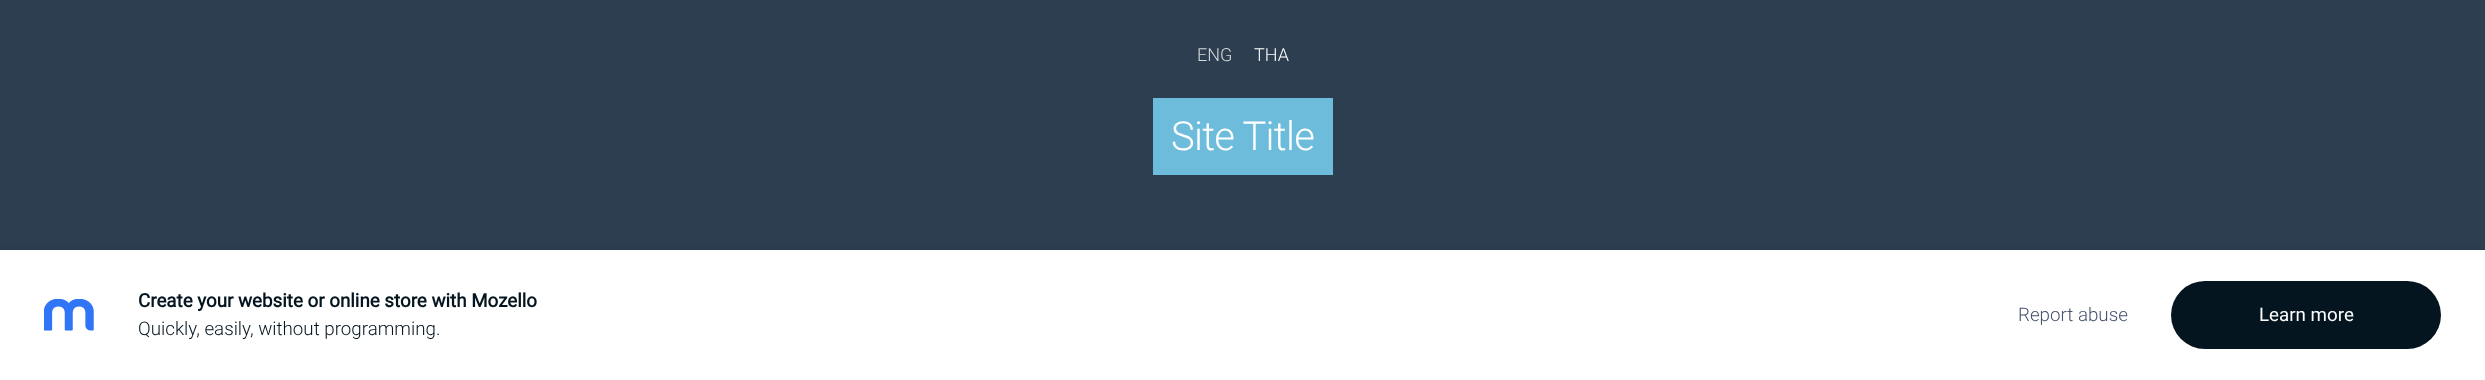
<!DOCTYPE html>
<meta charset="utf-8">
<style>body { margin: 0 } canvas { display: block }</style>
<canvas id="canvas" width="2485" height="380"></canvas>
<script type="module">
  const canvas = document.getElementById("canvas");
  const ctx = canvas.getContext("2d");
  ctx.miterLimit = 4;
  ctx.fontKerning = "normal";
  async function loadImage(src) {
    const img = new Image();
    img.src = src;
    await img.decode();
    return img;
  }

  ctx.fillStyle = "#2c3e50";
  ctx.fillRect(0, 0, 2485, 380);
  ctx.font = "300 18px Roboto";
  ctx.fillStyle = "#d7dadb";
  ctx.fillText("ENG", 1197, 61);
  ctx.fillStyle = "#ffffff";
  ctx.fillText("THA", 1254, 61);
  ctx.fillStyle = "#6dbcdb";
  ctx.fillRect(1153, 98, 180, 77);
  ctx.letterSpacing = "-0.75px";
  ctx.font = "300 40px Roboto";
  ctx.fillStyle = "#ffffff";
  ctx.fillText("Site Title", 1171, 150);
  ctx.fillStyle = "rgba(0, 0, 0, 0.17)";
  ctx.filter = "blur(6px)";
  ctx.beginPath();
  ctx.rect(3, 253, 2480, 125);
  ctx.fill();
  ctx.filter = "none";
  ctx.fillStyle = "#ffffff";
  ctx.fillRect(0, 250, 2485, 130);
  ctx.drawImage(await loadImage("img1.png"), 44, 299, 50, 32);
  ctx.letterSpacing = "0px";
  ctx.font = "bold 18.75px Roboto";
  ctx.fillStyle = "#04151f";
  ctx.fillText("Create your website or online store with Mozello", 138, 307);
  ctx.font = "300 18.75px Roboto";
  ctx.fillText("Quickly, easily, without programming.", 138, 335);
  ctx.fillStyle = "#45526c";
  ctx.fillText("Report abuse", 2018, 321);
  ctx.fillStyle = "#04151f";
  ctx.beginPath();
  ctx.roundRect(2171, 281, 270, 68, 34);
  ctx.fill();
  ctx.font = "18.75px Roboto";
  ctx.fillStyle = "#ffffff";
  ctx.fillText("Learn more", 2259, 321);
</script>
